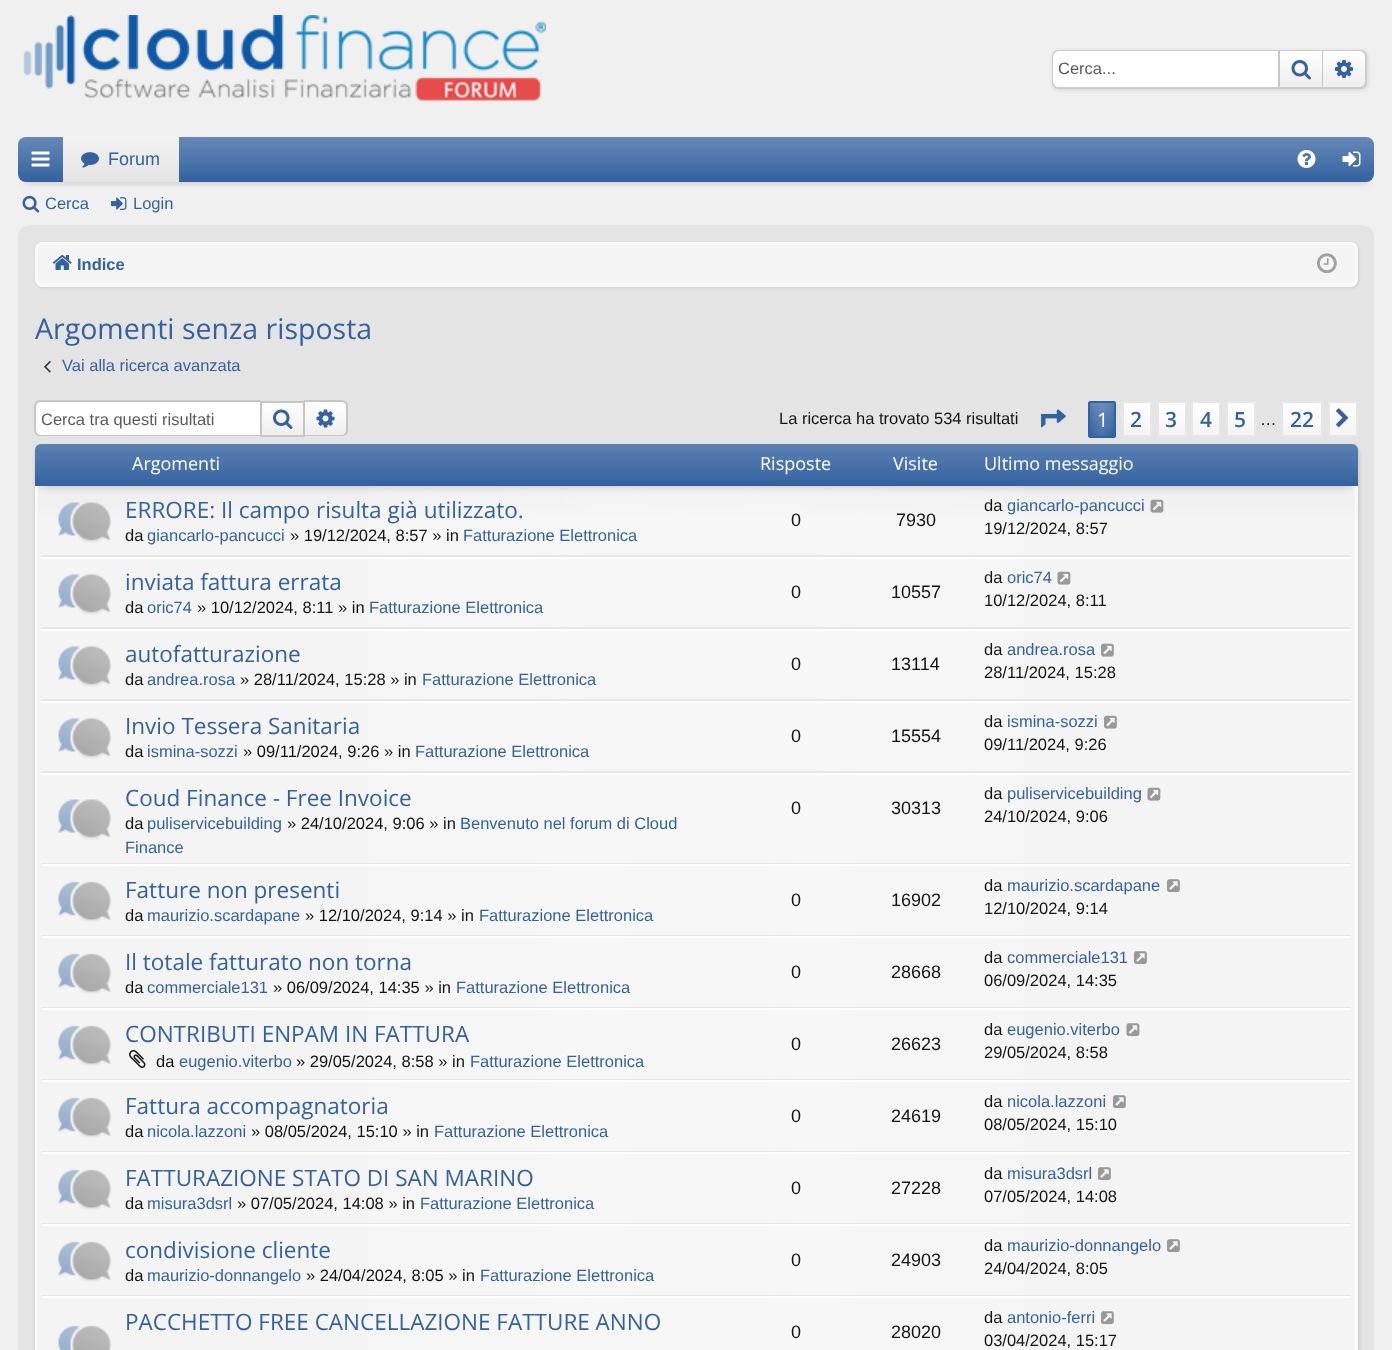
<!DOCTYPE html>
<meta charset="utf-8">
<style>body { margin: 0 } canvas { display: block }</style>
<canvas id="canvas" width="1392" height="1350"></canvas>
<script type="module">
  const canvas = document.getElementById("canvas");
  const ctx = canvas.getContext("2d");
  ctx.miterLimit = 4;
  ctx.fontKerning = "normal";
  async function loadImage(src) {
    const img = new Image();
    img.src = src;
    await img.decode();
    return img;
  }
  let gradient;

  ctx.fillStyle = "#f0f0f0";
  ctx.fillRect(0, 0, 1392, 1350);
  ctx.drawImage(await loadImage("img1.png"), 23, 15, 523, 86);
  ctx.fillStyle = "rgba(0, 0, 0, 0.1)";
  ctx.filter = "blur(2px)";
  ctx.beginPath();
  ctx.roundRect(1053, 51, 315, 39, 6);
  ctx.fill();
  ctx.filter = "none";
  ctx.beginPath();
  ctx.roundRect(1053, 51, 313, 37, 5);
  ctx.strokeStyle = "#cccccc";
  ctx.lineWidth = 2;
  ctx.stroke();
  ctx.fillStyle = "#ffffff";
  ctx.beginPath();
  ctx.roundRect(1053, 51, 225, 36, [6, 0, 0, 6]);
  ctx.fill();
  ctx.font = "16.5px Liberation Sans";
  ctx.fillStyle = "#5b5b5b";
  ctx.fillText("Cerca...", 1058, 74);
  gradient = ctx.createLinearGradient(1301, 51, 1301, 87);
  gradient.addColorStop(0, "#ffffff");
  gradient.addColorStop(1, "#eeeeee");
  ctx.fillStyle = gradient;
  ctx.fillRect(1280, 51, 42, 36);
  ctx.fillStyle = "#c6c6c6";
  ctx.fillRect(1322, 51, 1, 36);
  ctx.fillRect(1278, 51, 2, 36);
  ctx.drawImage(await loadImage("img2.png"), 1291, 60, 20, 20);
  ctx.fillStyle = "#eeeeee";
  ctx.beginPath();
  ctx.roundRect(1323, 51, 42, 36, [0, 6, 6, 0]);
  ctx.fill();
  gradient = ctx.createLinearGradient(1344, 51, 1344, 87);
  gradient.addColorStop(0, "#ffffff");
  gradient.addColorStop(1, "rgba(255, 255, 255, 0)");
  ctx.fillStyle = gradient;
  ctx.beginPath();
  ctx.roundRect(1323, 51, 42, 36, [0, 6, 6, 0]);
  ctx.fill();
  ctx.drawImage(await loadImage("img3.png"), 1335, 60, 18, 18);
  ctx.fillStyle = "rgba(0, 0, 0, 0.2)";
  ctx.filter = "blur(4px)";
  ctx.beginPath();
  ctx.rect(26, 152, 1341, 30);
  ctx.fill();
  ctx.filter = "none";
  ctx.fillStyle = "#3462a0";
  ctx.beginPath();
  ctx.roundRect(18, 137, 1356, 45, 8);
  ctx.fill();
  gradient = ctx.createLinearGradient(696, 136, 696, 182);
  gradient.addColorStop(0, "rgba(255, 255, 255, 0.25)");
  gradient.addColorStop(1, "rgba(255, 255, 255, 0)");
  ctx.fillStyle = gradient;
  ctx.beginPath();
  ctx.roundRect(18, 137, 1356, 45, 8);
  ctx.fill();
  ctx.drawImage(await loadImage("img4.png"), 31, 151, 19, 16);
  gradient = ctx.createLinearGradient(121, 137, 121, 182);
  gradient.addColorStop(0, "#f2f2f2");
  gradient.addColorStop(1, "#e4e4e4");
  ctx.fillStyle = gradient;
  ctx.fillRect(63, 137, 116, 45);
  ctx.drawImage(await loadImage("img5.png"), 81, 152, 18, 16);
  ctx.font = "18px Liberation Sans";
  ctx.fillStyle = "#3462a0";
  ctx.fillText("Forum", 108, 165);
  ctx.drawImage(await loadImage("img6.png"), 1297, 150, 19, 18);
  ctx.drawImage(await loadImage("img7.png"), 1342, 151, 19, 16);
  ctx.drawImage(await loadImage("img8.png"), 22, 195, 18, 18);
  ctx.font = "16.5px Liberation Sans";
  ctx.fillText("Cerca", 45, 209);
  ctx.drawImage(await loadImage("img9.png"), 111, 197, 16, 13);
  ctx.fillText("Login", 133, 209);
  ctx.fillStyle = "#e4e4e4";
  ctx.beginPath();
  ctx.roundRect(19, 226, 1354, 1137, 11);
  ctx.fill();
  ctx.strokeStyle = "#e4e4e4";
  ctx.stroke();
  ctx.fillStyle = "rgba(0, 0, 0, 0.1)";
  ctx.filter = "blur(1.5px)";
  ctx.beginPath();
  ctx.roundRect(36, 243, 1323, 45, 8);
  ctx.fill();
  ctx.filter = "none";
  ctx.fillStyle = "#f4f4f4";
  ctx.beginPath();
  ctx.roundRect(35, 242, 1323, 45, 8);
  ctx.fill();
  ctx.beginPath();
  ctx.roundRect(37, 244, 1318, 40, 5);
  ctx.strokeStyle = "#fafafa";
  ctx.stroke();
  ctx.beginPath();
  ctx.roundRect(36, 243, 1321, 43, 7);
  ctx.strokeStyle = "#f9f9f9";
  ctx.stroke();
  ctx.drawImage(await loadImage("img10.png"), 52, 255, 20, 15);
  ctx.font = "bold 16.5px Liberation Sans";
  ctx.fillStyle = "#3462a0";
  ctx.fillText("Indice", 77, 270);
  ctx.drawImage(await loadImage("img11.png"), 1317, 253, 20, 21);
  ctx.font = "28.5px Open Sans";
  ctx.fillText("Argomenti senza risposta", 35, 339);
  ctx.drawImage(await loadImage("img12.png"), 44, 361, 7, 12);
  ctx.font = "16.5px Liberation Sans";
  ctx.fillText("Vai alla ricerca avanzata", 62, 371);
  ctx.fillStyle = "#ffffff";
  ctx.beginPath();
  ctx.roundRect(36, 402, 224, 33, [5, 0, 0, 5]);
  ctx.fill();
  ctx.fillStyle = "#c6c6c6";
  ctx.beginPath();
  ctx.moveTo(40, 400);
  ctx.lineTo(260, 400);
  ctx.lineTo(260, 436);
  ctx.lineTo(40, 436);
  ctx.bezierCurveTo(37, 436, 34, 434, 34, 430);
  ctx.lineTo(34, 406);
  ctx.bezierCurveTo(34, 403, 37, 400, 40, 400);
  ctx.closePath();
  ctx.moveTo(40, 402);
  ctx.lineTo(260, 402);
  ctx.lineTo(260, 435);
  ctx.lineTo(40, 435);
  ctx.bezierCurveTo(38, 435, 36, 433, 36, 430);
  ctx.lineTo(36, 406);
  ctx.bezierCurveTo(36, 404, 38, 402, 40, 402);
  ctx.closePath();
  ctx.fill("evenodd");
  ctx.fillStyle = "#5b5b5b";
  ctx.fillText("Cerca tra questi risultati", 41, 425);
  gradient = ctx.createLinearGradient(282, 402, 282, 435);
  gradient.addColorStop(0, "#ffffff");
  gradient.addColorStop(1, "#eeeeee");
  ctx.fillStyle = gradient;
  ctx.fillRect(262, 403, 41, 32);
  ctx.strokeStyle = "#c6c6c6";
  ctx.strokeRect(261, 402, 43, 34);
  ctx.drawImage(await loadImage("img13.png"), 273, 409, 20, 20);
  ctx.fillStyle = "#eeeeee";
  ctx.beginPath();
  ctx.roundRect(305, 402, 42, 33, [0, 5, 5, 0]);
  ctx.fill();
  gradient = ctx.createLinearGradient(326, 402, 326, 435);
  gradient.addColorStop(0, "#ffffff");
  gradient.addColorStop(1, "rgba(255, 255, 255, 0)");
  ctx.fillStyle = gradient;
  ctx.beginPath();
  ctx.roundRect(305, 402, 42, 33, [0, 5, 5, 0]);
  ctx.fill();
  ctx.fillStyle = "#c6c6c6";
  ctx.beginPath();
  ctx.moveTo(304, 400);
  ctx.lineTo(342, 400);
  ctx.bezierCurveTo(345, 400, 348, 403, 348, 406);
  ctx.lineTo(348, 430);
  ctx.bezierCurveTo(348, 434, 345, 436, 342, 436);
  ctx.lineTo(304, 436);
  ctx.closePath();
  ctx.moveTo(304, 402);
  ctx.lineTo(342, 402);
  ctx.bezierCurveTo(344, 402, 346, 404, 346, 406);
  ctx.lineTo(346, 430);
  ctx.bezierCurveTo(346, 433, 344, 435, 342, 435);
  ctx.lineTo(304, 435);
  ctx.closePath();
  ctx.fill("evenodd");
  ctx.drawImage(await loadImage("img14.png"), 316, 409, 19, 19);
  ctx.fillStyle = "#141414";
  ctx.fillText("La ricerca ha trovato 534 risultati", 779, 424);
  ctx.drawImage(await loadImage("img15.png"), 1041, 409, 25, 19);
  ctx.fillStyle = "#3462a0";
  ctx.beginPath();
  ctx.roundRect(1088, 401, 28, 37, 3);
  ctx.fill();
  gradient = ctx.createLinearGradient(1089, 419, 1115, 419);
  gradient.addColorStop(0, "rgba(255, 255, 255, 0)");
  gradient.addColorStop(0.5, "rgba(255, 255, 255, 0.1)");
  gradient.addColorStop(1, "rgba(255, 255, 255, 0)");
  ctx.fillStyle = gradient;
  ctx.fillRect(1092, 403, 20, 33);
  gradient = ctx.createLinearGradient(1102, 402, 1102, 437);
  gradient.addColorStop(0, "rgba(255, 255, 255, 0.2)");
  gradient.addColorStop(1, "rgba(255, 255, 255, 0)");
  ctx.fillStyle = gradient;
  ctx.fillRect(1088, 402, 28, 31);
  ctx.beginPath();
  ctx.roundRect(1089, 402, 26, 35, 2);
  ctx.strokeStyle = "#3462a0";
  ctx.stroke();
  ctx.font = "20px Open Sans";
  ctx.fillStyle = "#ffffff";
  ctx.fillText("1", 1097, 427);
  ctx.fillStyle = "#f4f4f4";
  ctx.beginPath();
  ctx.roundRect(1122, 401, 30, 36, 3);
  ctx.fill();
  ctx.save();
  ctx.beginPath();
  ctx.roundRect(1122, 401, 30, 36, 3);
  ctx.clip();
  gradient = ctx.createLinearGradient(1137, 402, 1137, 435);
  gradient.addColorStop(0, "#ffffff");
  gradient.addColorStop(1, "rgba(255, 255, 255, 0)");
  ctx.fillStyle = gradient;
  ctx.fillRect(1122, 402, 30, 32);
  ctx.restore();
  ctx.beginPath();
  ctx.roundRect(1123, 402, 28, 34, 2);
  ctx.strokeStyle = "#e7e7e7";
  ctx.stroke();
  ctx.font = "600 21px Open Sans";
  ctx.fillStyle = "#3462a0";
  ctx.fillText("2", 1130, 427);
  ctx.fillStyle = "#f4f4f4";
  ctx.beginPath();
  ctx.roundRect(1157, 401, 30, 36, 3);
  ctx.fill();
  ctx.save();
  ctx.beginPath();
  ctx.roundRect(1157, 401, 30, 36, 3);
  ctx.clip();
  gradient = ctx.createLinearGradient(1172, 402, 1172, 435);
  gradient.addColorStop(0, "#ffffff");
  gradient.addColorStop(1, "rgba(255, 255, 255, 0)");
  ctx.fillStyle = gradient;
  ctx.fillRect(1157, 402, 30, 32);
  ctx.restore();
  ctx.beginPath();
  ctx.roundRect(1158, 402, 28, 34, 2);
  ctx.stroke();
  ctx.fillStyle = "#3462a0";
  ctx.fillText("3", 1165, 427);
  ctx.fillStyle = "#f4f4f4";
  ctx.beginPath();
  ctx.roundRect(1191, 401, 30, 36, 3);
  ctx.fill();
  ctx.save();
  ctx.beginPath();
  ctx.roundRect(1191, 401, 30, 36, 3);
  ctx.clip();
  gradient = ctx.createLinearGradient(1206, 402, 1206, 435);
  gradient.addColorStop(0, "#ffffff");
  gradient.addColorStop(1, "rgba(255, 255, 255, 0)");
  ctx.fillStyle = gradient;
  ctx.fillRect(1191, 402, 30, 32);
  ctx.restore();
  ctx.beginPath();
  ctx.roundRect(1192, 402, 28, 34, 2);
  ctx.stroke();
  ctx.fillStyle = "#3462a0";
  ctx.fillText("4", 1200, 427);
  ctx.fillStyle = "#f4f4f4";
  ctx.beginPath();
  ctx.roundRect(1226, 401, 30, 36, 3);
  ctx.fill();
  ctx.save();
  ctx.beginPath();
  ctx.roundRect(1226, 401, 30, 36, 3);
  ctx.clip();
  gradient = ctx.createLinearGradient(1241, 402, 1241, 435);
  gradient.addColorStop(0, "#ffffff");
  gradient.addColorStop(1, "rgba(255, 255, 255, 0)");
  ctx.fillStyle = gradient;
  ctx.fillRect(1226, 402, 30, 32);
  ctx.restore();
  ctx.beginPath();
  ctx.roundRect(1227, 402, 28, 34, 2);
  ctx.stroke();
  ctx.fillStyle = "#3462a0";
  ctx.fillText("5", 1234, 427);
  ctx.font = "16.5px Liberation Sans";
  ctx.fillStyle = "#000000";
  ctx.fillText("…", 1260, 425);
  ctx.fillStyle = "#f4f4f4";
  ctx.beginPath();
  ctx.roundRect(1281, 401, 42, 36, 3);
  ctx.fill();
  ctx.save();
  ctx.beginPath();
  ctx.roundRect(1281, 401, 42, 36, 3);
  ctx.clip();
  gradient = ctx.createLinearGradient(1302, 402, 1302, 435);
  gradient.addColorStop(0, "#ffffff");
  gradient.addColorStop(1, "rgba(255, 255, 255, 0)");
  ctx.fillStyle = gradient;
  ctx.fillRect(1281, 402, 42, 32);
  ctx.restore();
  ctx.beginPath();
  ctx.roundRect(1282, 402, 40, 34, 2);
  ctx.stroke();
  ctx.font = "600 21px Open Sans";
  ctx.fillStyle = "#3462a0";
  ctx.fillText("22", 1290, 427);
  ctx.fillStyle = "#f4f4f4";
  ctx.beginPath();
  ctx.roundRect(1328, 401, 30, 36, 3);
  ctx.fill();
  ctx.save();
  ctx.beginPath();
  ctx.roundRect(1328, 401, 30, 36, 3);
  ctx.clip();
  gradient = ctx.createLinearGradient(1343, 402, 1343, 435);
  gradient.addColorStop(0, "#ffffff");
  gradient.addColorStop(1, "rgba(255, 255, 255, 0)");
  ctx.fillStyle = gradient;
  ctx.fillRect(1328, 402, 30, 32);
  ctx.restore();
  ctx.beginPath();
  ctx.roundRect(1329, 402, 28, 34, 2);
  ctx.stroke();
  ctx.drawImage(await loadImage("img16.png"), 1336, 408, 13, 20);
  ctx.fillStyle = "rgba(0, 0, 0, 0.15)";
  ctx.filter = "blur(2px)";
  ctx.beginPath();
  ctx.roundRect(36, 446, 1323, 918, 8);
  ctx.fill();
  ctx.filter = "none";
  ctx.fillStyle = "#f4f4f4";
  ctx.beginPath();
  ctx.roundRect(35, 444, 1323, 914, 8);
  ctx.fill();
  ctx.save();
  ctx.beginPath();
  ctx.roundRect(35, 444, 1323, 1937, 8);
  ctx.clip();
  gradient = ctx.createLinearGradient(696, 446, 696, 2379);
  gradient.addColorStop(0, "rgba(204, 204, 204, 0.2)");
  gradient.addColorStop(0.01, "rgba(204, 204, 204, 0.25)");
  gradient.addColorStop(0.04, "rgba(204, 204, 204, 0)");
  ctx.fillStyle = gradient;
  ctx.fillRect(35, 448, 1323, 70);
  ctx.restore();
  gradient = ctx.createLinearGradient(36, 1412, 1356, 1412);
  gradient.addColorStop(0, "rgba(255, 255, 255, 0)");
  gradient.addColorStop(0.5, "rgba(255, 255, 255, 0.3)");
  gradient.addColorStop(1, "rgba(255, 255, 255, 0)");
  ctx.fillStyle = gradient;
  ctx.fillRect(368, 486, 656, 864);
  ctx.beginPath();
  ctx.roundRect(37, 447, 1318, 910, 5);
  ctx.strokeStyle = "rgba(255, 255, 255, 0.5)";
  ctx.stroke();
  ctx.beginPath();
  ctx.roundRect(36, 445, 1321, 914, 7);
  ctx.strokeStyle = "#f9f9f9";
  ctx.stroke();
  ctx.fillStyle = "rgba(0, 0, 0, 0.2)";
  ctx.filter = "blur(4px)";
  ctx.beginPath();
  ctx.rect(42, 459, 1308, 27);
  ctx.fill();
  ctx.filter = "none";
  ctx.fillStyle = "#3462a0";
  ctx.beginPath();
  ctx.roundRect(35, 444, 1323, 42, [6, 6, 0, 0]);
  ctx.fill();
  gradient = ctx.createLinearGradient(696, 444, 696, 486);
  gradient.addColorStop(0, "rgba(255, 255, 255, 0.2)");
  gradient.addColorStop(1, "rgba(255, 255, 255, 0)");
  ctx.fillStyle = gradient;
  ctx.beginPath();
  ctx.roundRect(35, 444, 1323, 42, [6, 6, 0, 0]);
  ctx.fill();
  ctx.font = "18px Open Sans";
  ctx.fillStyle = "#ffffff";
  ctx.fillText("Argomenti", 132, 470);
  ctx.fillText("Risposte", 760, 470);
  ctx.fillText("Visite", 893, 470);
  ctx.fillText("Ultimo messaggio", 984, 470);
  ctx.fillStyle = "#e7e7e7";
  ctx.fillRect(42, 555, 1308, 2);
  ctx.drawImage(await loadImage("img17.png"), 58, 502, 53, 41);
  ctx.font = "22.5px Open Sans";
  ctx.fillStyle = "#3462a0";
  ctx.fillText("ERRORE: Il campo risulta già utilizzato.", 125, 518);
  ctx.font = "16.5px Liberation Sans";
  ctx.fillStyle = "#141414";
  ctx.fillText("da", 125, 541);
  ctx.fillStyle = "#3462a0";
  ctx.fillText("giancarlo-pancucci", 147, 541);
  ctx.fillStyle = "#141414";
  ctx.fillText("» 19/12/2024, 8:57 » in", 290, 541);
  ctx.fillStyle = "#3462a0";
  ctx.fillText("Fatturazione Elettronica", 463, 541);
  ctx.font = "18px Liberation Sans";
  ctx.fillStyle = "#141414";
  ctx.fillText("0", 791, 526);
  ctx.fillText("7930", 896, 526);
  ctx.font = "16.5px Liberation Sans";
  ctx.fillText("da", 984, 511);
  ctx.fillStyle = "#3462a0";
  ctx.fillText("giancarlo-pancucci", 1007, 511);
  ctx.drawImage(await loadImage("img18.png"), 1150, 499, 14, 14);
  ctx.fillStyle = "#141414";
  ctx.fillText("19/12/2024, 8:57", 984, 534);
  ctx.fillStyle = "#ffffff";
  ctx.fillRect(42, 557, 1308, 2);
  ctx.fillStyle = "#e7e7e7";
  ctx.fillRect(42, 627, 1308, 2);
  ctx.drawImage(await loadImage("img19.png"), 58, 574, 53, 41);
  ctx.font = "22.5px Open Sans";
  ctx.fillStyle = "#3462a0";
  ctx.fillText("inviata fattura errata", 125, 590);
  ctx.font = "16.5px Liberation Sans";
  ctx.fillStyle = "#141414";
  ctx.fillText("da", 125, 613);
  ctx.fillStyle = "#3462a0";
  ctx.fillText("oric74", 147, 613);
  ctx.fillStyle = "#141414";
  ctx.fillText("» 10/12/2024, 8:11 » in", 197, 613);
  ctx.fillStyle = "#3462a0";
  ctx.fillText("Fatturazione Elettronica", 369, 613);
  ctx.font = "18px Liberation Sans";
  ctx.fillStyle = "#141414";
  ctx.fillText("0", 791, 598);
  ctx.fillText("10557", 891, 598);
  ctx.font = "16.5px Liberation Sans";
  ctx.fillText("da", 984, 583);
  ctx.fillStyle = "#3462a0";
  ctx.fillText("oric74", 1007, 583);
  ctx.drawImage(await loadImage("img20.png"), 1057, 571, 14, 14);
  ctx.fillStyle = "#141414";
  ctx.fillText("10/12/2024, 8:11", 984, 606);
  ctx.fillStyle = "#ffffff";
  ctx.fillRect(42, 629, 1308, 2);
  ctx.fillStyle = "#e7e7e7";
  ctx.fillRect(42, 699, 1308, 2);
  ctx.drawImage(await loadImage("img19.png"), 58, 646, 53, 41);
  ctx.font = "22.5px Open Sans";
  ctx.fillStyle = "#3462a0";
  ctx.fillText("autofatturazione", 125, 662);
  ctx.font = "16.5px Liberation Sans";
  ctx.fillStyle = "#141414";
  ctx.fillText("da", 125, 685);
  ctx.fillStyle = "#3462a0";
  ctx.fillText("andrea.rosa", 147, 685);
  ctx.fillStyle = "#141414";
  ctx.fillText("» 28/11/2024, 15:28 » in", 240, 685);
  ctx.fillStyle = "#3462a0";
  ctx.fillText("Fatturazione Elettronica", 422, 685);
  ctx.font = "18px Liberation Sans";
  ctx.fillStyle = "#141414";
  ctx.fillText("0", 791, 670);
  ctx.fillText("13114", 891, 670);
  ctx.font = "16.5px Liberation Sans";
  ctx.fillText("da", 984, 655);
  ctx.fillStyle = "#3462a0";
  ctx.fillText("andrea.rosa", 1007, 655);
  ctx.drawImage(await loadImage("img21.png"), 1101, 643, 13, 14);
  ctx.fillStyle = "#141414";
  ctx.fillText("28/11/2024, 15:28", 984, 678);
  ctx.fillStyle = "#ffffff";
  ctx.fillRect(42, 701, 1308, 2);
  ctx.fillStyle = "#e7e7e7";
  ctx.fillRect(42, 771, 1308, 2);
  ctx.drawImage(await loadImage("img19.png"), 58, 718, 53, 41);
  ctx.font = "22.5px Open Sans";
  ctx.fillStyle = "#3462a0";
  ctx.fillText("Invio Tessera Sanitaria", 125, 734);
  ctx.font = "16.5px Liberation Sans";
  ctx.fillStyle = "#141414";
  ctx.fillText("da", 125, 757);
  ctx.fillStyle = "#3462a0";
  ctx.fillText("ismina-sozzi", 147, 757);
  ctx.fillStyle = "#141414";
  ctx.fillText("» 09/11/2024, 9:26 » in", 243, 757);
  ctx.fillStyle = "#3462a0";
  ctx.fillText("Fatturazione Elettronica", 415, 757);
  ctx.font = "18px Liberation Sans";
  ctx.fillStyle = "#141414";
  ctx.fillText("0", 791, 742);
  ctx.fillText("15554", 891, 742);
  ctx.font = "16.5px Liberation Sans";
  ctx.fillText("da", 984, 727);
  ctx.fillStyle = "#3462a0";
  ctx.fillText("ismina-sozzi", 1007, 727);
  ctx.drawImage(await loadImage("img21.png"), 1104, 715, 13, 14);
  ctx.fillStyle = "#141414";
  ctx.fillText("09/11/2024, 9:26", 984, 750);
  ctx.fillStyle = "#ffffff";
  ctx.fillRect(42, 773, 1308, 2);
  ctx.fillStyle = "#e7e7e7";
  ctx.fillRect(42, 863, 1308, 1);
  ctx.drawImage(await loadImage("img19.png"), 58, 799, 53, 41);
  ctx.font = "22.5px Open Sans";
  ctx.fillStyle = "#3462a0";
  ctx.fillText("Coud Finance - Free Invoice", 125, 806);
  ctx.font = "16.5px Liberation Sans";
  ctx.fillStyle = "#141414";
  ctx.fillText("da", 125, 829);
  ctx.fillStyle = "#3462a0";
  ctx.fillText("puliservicebuilding", 147, 829);
  ctx.fillStyle = "#141414";
  ctx.fillText("» 24/10/2024, 9:06 » in", 287, 829);
  ctx.fillStyle = "#3462a0";
  ctx.fillText("Benvenuto nel forum di Cloud", 460, 829);
  ctx.fillText("Finance", 125, 853);
  ctx.font = "18px Liberation Sans";
  ctx.fillStyle = "#141414";
  ctx.fillText("0", 791, 814);
  ctx.fillText("30313", 891, 814);
  ctx.font = "16.5px Liberation Sans";
  ctx.fillText("da", 984, 799);
  ctx.fillStyle = "#3462a0";
  ctx.fillText("puliservicebuilding", 1007, 799);
  ctx.drawImage(await loadImage("img22.png"), 1147, 787, 14, 14);
  ctx.fillStyle = "#141414";
  ctx.fillText("24/10/2024, 9:06", 984, 822);
  ctx.fillStyle = "#ffffff";
  ctx.fillRect(42, 864, 1308, 2);
  ctx.fillStyle = "#e7e7e7";
  ctx.fillRect(42, 935, 1308, 1);
  ctx.drawImage(await loadImage("img23.png"), 58, 881, 53, 41);
  ctx.font = "22.5px Open Sans";
  ctx.fillStyle = "#3462a0";
  ctx.fillText("Fatture non presenti", 125, 898);
  ctx.font = "16.5px Liberation Sans";
  ctx.fillStyle = "#141414";
  ctx.fillText("da", 125, 921);
  ctx.fillStyle = "#3462a0";
  ctx.fillText("maurizio.scardapane", 147, 921);
  ctx.fillStyle = "#141414";
  ctx.fillText("» 12/10/2024, 9:14 » in", 305, 921);
  ctx.fillStyle = "#3462a0";
  ctx.fillText("Fatturazione Elettronica", 479, 921);
  ctx.font = "18px Liberation Sans";
  ctx.fillStyle = "#141414";
  ctx.fillText("0", 791, 906);
  ctx.fillText("16902", 891, 906);
  ctx.font = "16.5px Liberation Sans";
  ctx.fillText("da", 984, 891);
  ctx.fillStyle = "#3462a0";
  ctx.fillText("maurizio.scardapane", 1007, 891);
  ctx.drawImage(await loadImage("img24.png"), 1167, 879, 13, 14);
  ctx.fillStyle = "#141414";
  ctx.fillText("12/10/2024, 9:14", 984, 914);
  ctx.fillStyle = "#ffffff";
  ctx.fillRect(42, 936, 1308, 2);
  ctx.fillStyle = "#e7e7e7";
  ctx.fillRect(42, 1007, 1308, 1);
  ctx.drawImage(await loadImage("img23.png"), 58, 953, 53, 41);
  ctx.font = "22.5px Open Sans";
  ctx.fillStyle = "#3462a0";
  ctx.fillText("Il totale fatturato non torna", 125, 970);
  ctx.font = "16.5px Liberation Sans";
  ctx.fillStyle = "#141414";
  ctx.fillText("da", 125, 993);
  ctx.fillStyle = "#3462a0";
  ctx.fillText("commerciale131", 147, 993);
  ctx.fillStyle = "#141414";
  ctx.fillText("» 06/09/2024, 14:35 » in", 273, 993);
  ctx.fillStyle = "#3462a0";
  ctx.fillText("Fatturazione Elettronica", 456, 993);
  ctx.font = "18px Liberation Sans";
  ctx.fillStyle = "#141414";
  ctx.fillText("0", 791, 978);
  ctx.fillText("28668", 891, 978);
  ctx.font = "16.5px Liberation Sans";
  ctx.fillText("da", 984, 963);
  ctx.fillStyle = "#3462a0";
  ctx.fillText("commerciale131", 1007, 963);
  ctx.drawImage(await loadImage("img25.png"), 1134, 951, 13, 14);
  ctx.fillStyle = "#141414";
  ctx.fillText("06/09/2024, 14:35", 984, 986);
  ctx.fillStyle = "#ffffff";
  ctx.fillRect(42, 1008, 1308, 2);
  ctx.fillStyle = "#e7e7e7";
  ctx.fillRect(42, 1079, 1308, 1);
  ctx.drawImage(await loadImage("img23.png"), 58, 1025, 53, 41);
  ctx.font = "22.5px Open Sans";
  ctx.fillStyle = "#3462a0";
  ctx.fillText("CONTRIBUTI ENPAM IN FATTURA", 125, 1042);
  ctx.drawImage(await loadImage("img26.png"), 129, 1050, 17, 18);
  ctx.font = "16.5px Liberation Sans";
  ctx.fillStyle = "#141414";
  ctx.fillText("da", 156, 1067);
  ctx.fillStyle = "#3462a0";
  ctx.fillText("eugenio.viterbo", 179, 1067);
  ctx.fillStyle = "#141414";
  ctx.fillText("» 29/05/2024, 8:58 » in", 296, 1067);
  ctx.fillStyle = "#3462a0";
  ctx.fillText("Fatturazione Elettronica", 470, 1067);
  ctx.font = "18px Liberation Sans";
  ctx.fillStyle = "#141414";
  ctx.fillText("0", 791, 1050);
  ctx.fillText("26623", 891, 1050);
  ctx.font = "16.5px Liberation Sans";
  ctx.fillText("da", 984, 1035);
  ctx.fillStyle = "#3462a0";
  ctx.fillText("eugenio.viterbo", 1007, 1035);
  ctx.drawImage(await loadImage("img27.png"), 1126, 1023, 14, 14);
  ctx.fillStyle = "#141414";
  ctx.fillText("29/05/2024, 8:58", 984, 1058);
  ctx.fillStyle = "#ffffff";
  ctx.fillRect(42, 1080, 1308, 2);
  ctx.fillStyle = "#e7e7e7";
  ctx.fillRect(42, 1151, 1308, 1);
  ctx.drawImage(await loadImage("img23.png"), 58, 1097, 53, 41);
  ctx.font = "22.5px Open Sans";
  ctx.fillStyle = "#3462a0";
  ctx.fillText("Fattura accompagnatoria", 125, 1114);
  ctx.font = "16.5px Liberation Sans";
  ctx.fillStyle = "#141414";
  ctx.fillText("da", 125, 1137);
  ctx.fillStyle = "#3462a0";
  ctx.fillText("nicola.lazzoni", 147, 1137);
  ctx.fillStyle = "#141414";
  ctx.fillText("» 08/05/2024, 15:10 » in", 251, 1137);
  ctx.fillStyle = "#3462a0";
  ctx.fillText("Fatturazione Elettronica", 434, 1137);
  ctx.font = "18px Liberation Sans";
  ctx.fillStyle = "#141414";
  ctx.fillText("0", 791, 1122);
  ctx.fillText("24619", 891, 1122);
  ctx.font = "16.5px Liberation Sans";
  ctx.fillText("da", 984, 1107);
  ctx.fillStyle = "#3462a0";
  ctx.fillText("nicola.lazzoni", 1007, 1107);
  ctx.drawImage(await loadImage("img28.png"), 1113, 1095, 13, 14);
  ctx.fillStyle = "#141414";
  ctx.fillText("08/05/2024, 15:10", 984, 1130);
  ctx.fillStyle = "#ffffff";
  ctx.fillRect(42, 1152, 1308, 2);
  ctx.fillStyle = "#e7e7e7";
  ctx.fillRect(42, 1223, 1308, 1);
  ctx.drawImage(await loadImage("img23.png"), 58, 1169, 53, 41);
  ctx.font = "22.5px Open Sans";
  ctx.fillStyle = "#3462a0";
  ctx.fillText("FATTURAZIONE STATO DI SAN MARINO", 125, 1186);
  ctx.font = "16.5px Liberation Sans";
  ctx.fillStyle = "#141414";
  ctx.fillText("da", 125, 1209);
  ctx.fillStyle = "#3462a0";
  ctx.fillText("misura3dsrl", 147, 1209);
  ctx.fillStyle = "#141414";
  ctx.fillText("» 07/05/2024, 14:08 » in", 237, 1209);
  ctx.fillStyle = "#3462a0";
  ctx.fillText("Fatturazione Elettronica", 420, 1209);
  ctx.font = "18px Liberation Sans";
  ctx.fillStyle = "#141414";
  ctx.fillText("0", 791, 1194);
  ctx.fillText("27228", 891, 1194);
  ctx.font = "16.5px Liberation Sans";
  ctx.fillText("da", 984, 1179);
  ctx.fillStyle = "#3462a0";
  ctx.fillText("misura3dsrl", 1007, 1179);
  ctx.drawImage(await loadImage("img29.png"), 1098, 1167, 13, 14);
  ctx.fillStyle = "#141414";
  ctx.fillText("07/05/2024, 14:08", 984, 1202);
  ctx.fillStyle = "#ffffff";
  ctx.fillRect(42, 1224, 1308, 2);
  ctx.fillStyle = "#e7e7e7";
  ctx.fillRect(42, 1295, 1308, 1);
  ctx.drawImage(await loadImage("img23.png"), 58, 1241, 53, 41);
  ctx.font = "22.5px Open Sans";
  ctx.fillStyle = "#3462a0";
  ctx.fillText("condivisione cliente", 125, 1258);
  ctx.font = "16.5px Liberation Sans";
  ctx.fillStyle = "#141414";
  ctx.fillText("da", 125, 1281);
  ctx.fillStyle = "#3462a0";
  ctx.fillText("maurizio-donnangelo", 147, 1281);
  ctx.fillStyle = "#141414";
  ctx.fillText("» 24/04/2024, 8:05 » in", 306, 1281);
  ctx.fillStyle = "#3462a0";
  ctx.fillText("Fatturazione Elettronica", 480, 1281);
  ctx.font = "18px Liberation Sans";
  ctx.fillStyle = "#141414";
  ctx.fillText("0", 791, 1266);
  ctx.fillText("24903", 891, 1266);
  ctx.font = "16.5px Liberation Sans";
  ctx.fillText("da", 984, 1251);
  ctx.fillStyle = "#3462a0";
  ctx.fillText("maurizio-donnangelo", 1007, 1251);
  ctx.drawImage(await loadImage("img24.png"), 1167, 1239, 13, 14);
  ctx.fillStyle = "#141414";
  ctx.fillText("24/04/2024, 8:05", 984, 1274);
  ctx.fillStyle = "#ffffff";
  ctx.fillRect(42, 1296, 1308, 2);
  ctx.drawImage(await loadImage("img30.png"), 58, 1325, 53, 25);
  ctx.font = "22.5px Open Sans";
  ctx.fillStyle = "#3462a0";
  ctx.fillText("PACCHETTO FREE CANCELLAZIONE FATTURE ANNO", 125, 1330);
  ctx.font = "18px Liberation Sans";
  ctx.fillStyle = "#141414";
  ctx.fillText("0", 791, 1338);
  ctx.fillText("28020", 891, 1338);
  ctx.font = "16.5px Liberation Sans";
  ctx.fillText("da", 984, 1323);
  ctx.fillStyle = "#3462a0";
  ctx.fillText("antonio-ferri", 1007, 1323);
  ctx.drawImage(await loadImage("img31.png"), 1101, 1311, 13, 14);
  ctx.fillStyle = "#141414";
  ctx.fillText("03/04/2024, 15:17", 984, 1346);
</script>
